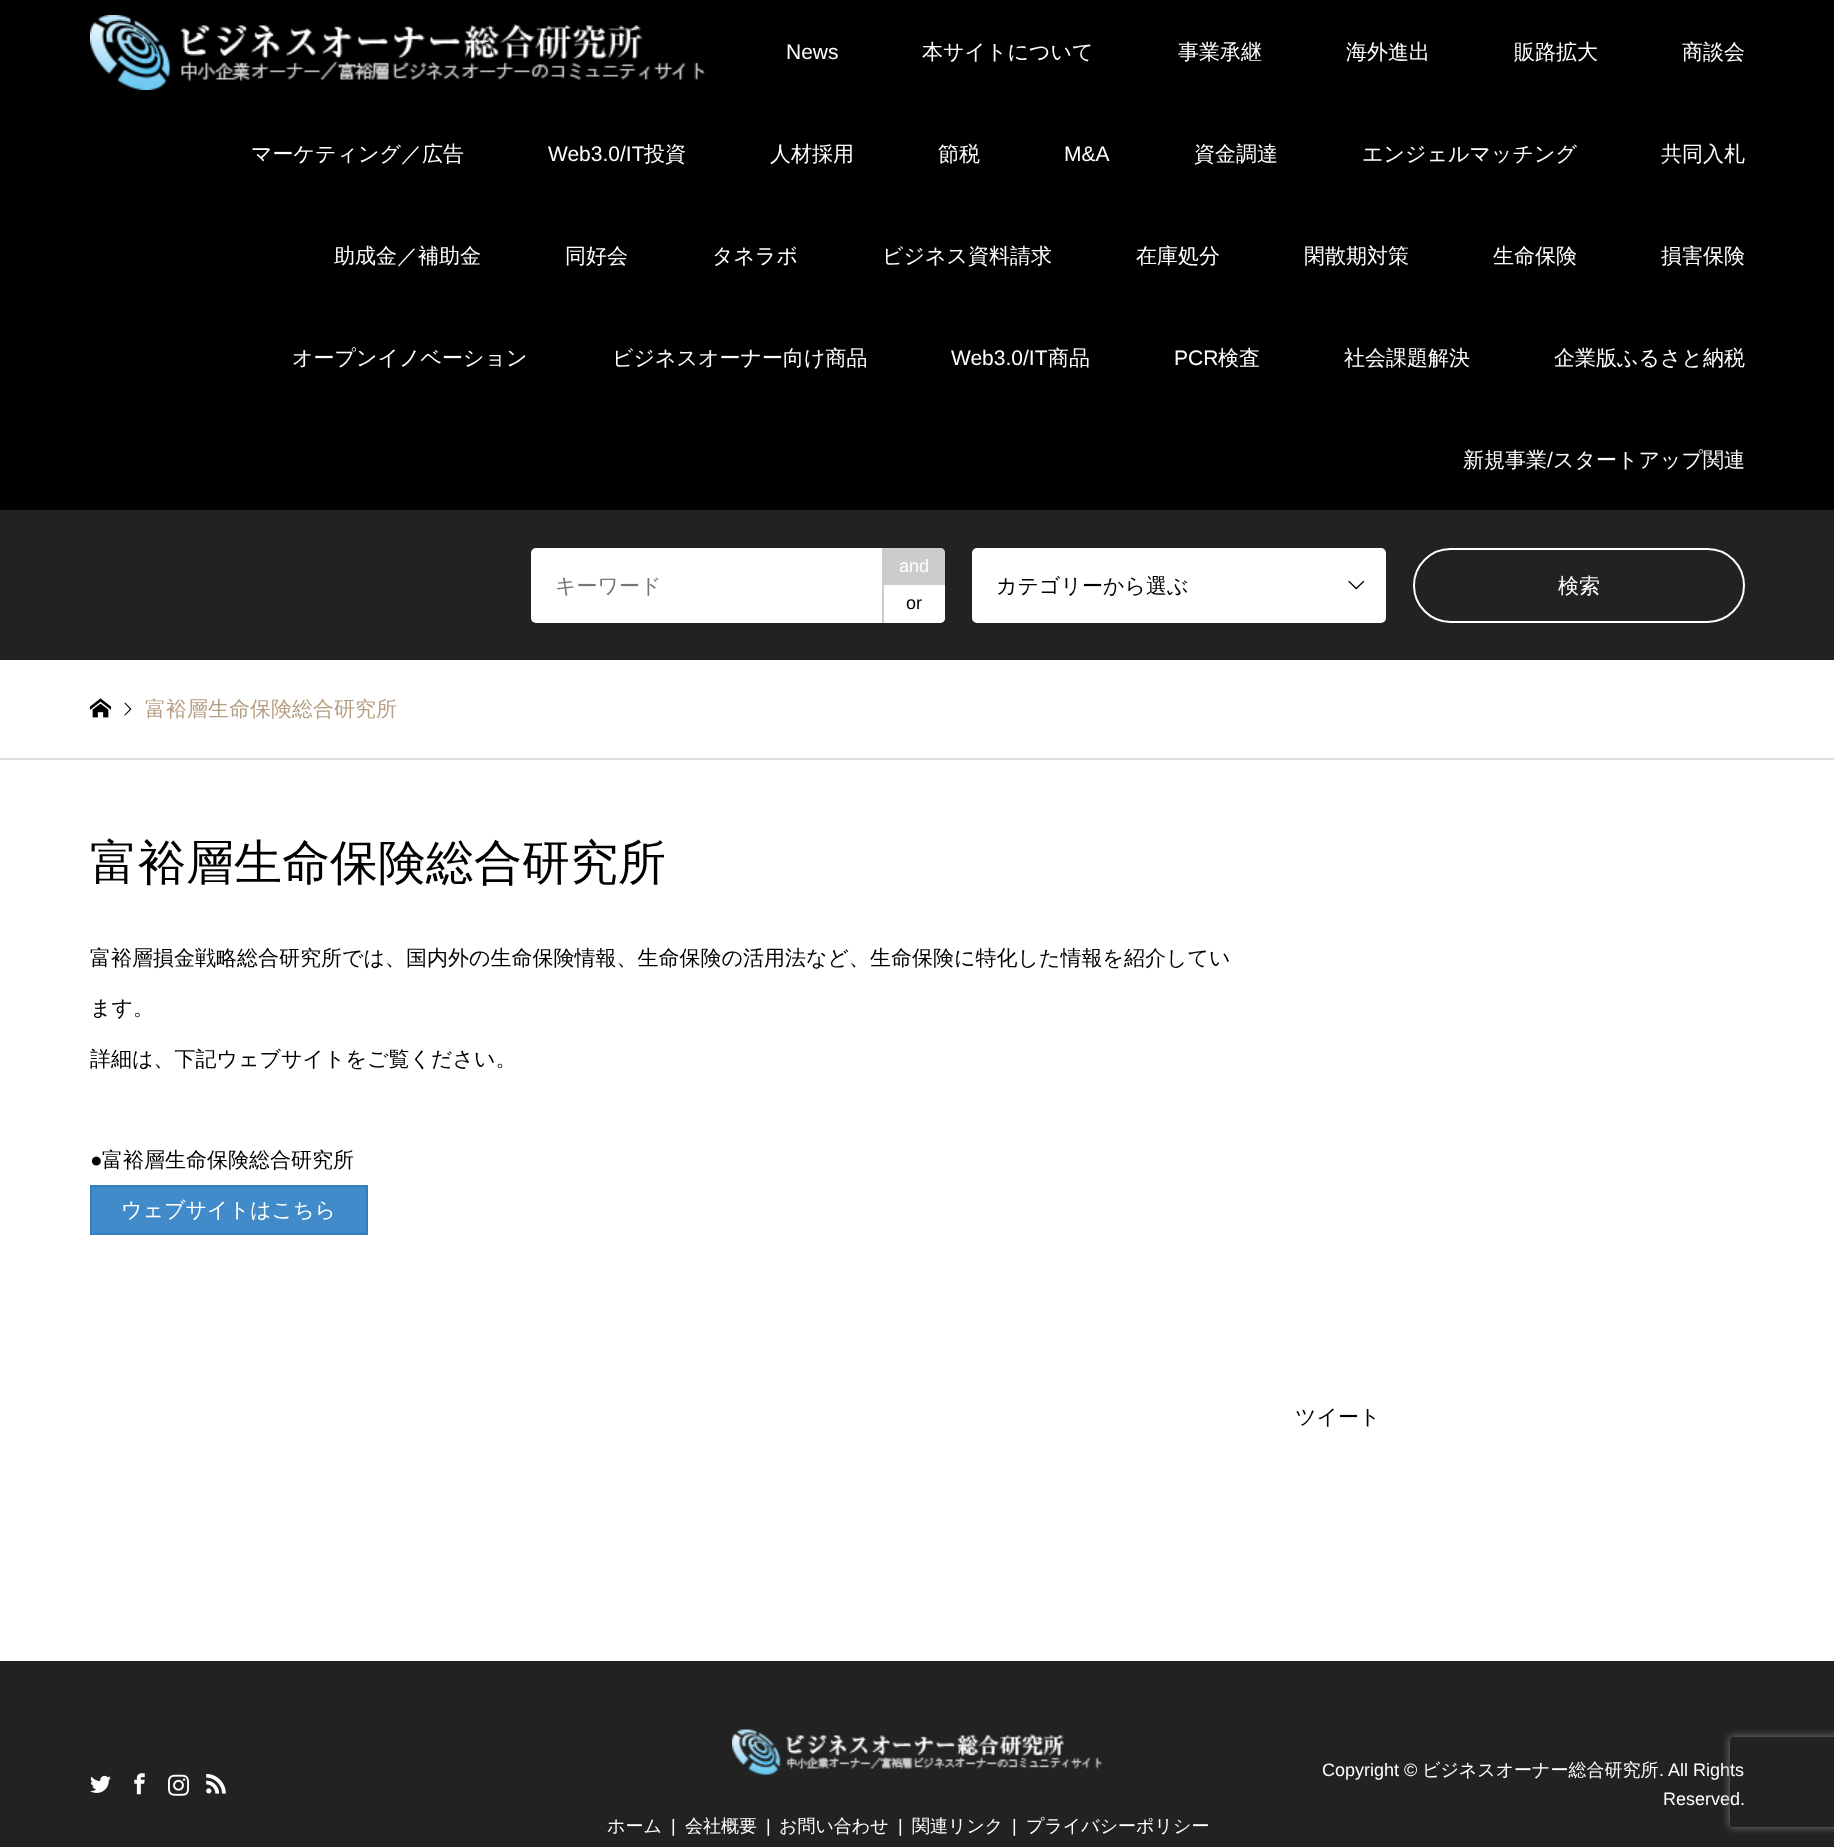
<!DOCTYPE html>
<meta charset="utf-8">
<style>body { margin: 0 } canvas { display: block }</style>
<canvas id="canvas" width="1834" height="1847"></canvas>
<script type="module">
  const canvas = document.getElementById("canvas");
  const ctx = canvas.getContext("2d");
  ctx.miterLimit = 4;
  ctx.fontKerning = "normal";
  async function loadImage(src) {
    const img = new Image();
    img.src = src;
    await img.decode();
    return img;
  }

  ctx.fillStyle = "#ffffff";
  ctx.fillRect(0, 0, 1834, 1847);
  ctx.fillStyle = "#000000";
  ctx.fillRect(0, 0, 1834, 510);
  ctx.drawImage(await loadImage("img1.png"), 90, 15, 616, 75);
  ctx.font = "21px Liberation Sans";
  ctx.fillStyle = "#ffffff";
  ctx.fillText("News", 786, 59);
  ctx.font = "500 21px WenQuanYi Zen Hei";
  ctx.fillText("本サイトについて", 922, 59);
  ctx.fillText("事業承継", 1178, 59);
  ctx.fillText("海外進出", 1346, 59);
  ctx.fillText("販路拡大", 1514, 59);
  ctx.fillText("商談会", 1682, 59);
  ctx.fillText("マーケティング／広告", 251, 161);
  ctx.font = "21px Liberation Sans";
  ctx.fillText("Web3.0/IT", 548, 161);
  ctx.font = "500 21px WenQuanYi Zen Hei";
  ctx.fillText("投資", 644, 161);
  ctx.fillText("人材採用", 770, 161);
  ctx.fillText("節税", 938, 161);
  ctx.font = "21px Liberation Sans";
  ctx.fillText("M&A", 1064, 161);
  ctx.font = "500 21px WenQuanYi Zen Hei";
  ctx.fillText("資金調達", 1194, 161);
  ctx.fillText("エンジェルマッチング", 1362, 161);
  ctx.fillText("共同入札", 1661, 161);
  ctx.fillText("助成金／補助金", 334, 263);
  ctx.fillText("同好会", 565, 263);
  ctx.fillText("タネラボ", 712, 263);
  ctx.fillText("ビジネス資料請求", 882, 263);
  ctx.fillText("在庫処分", 1136, 263);
  ctx.fillText("閑散期対策", 1304, 263);
  ctx.fillText("生命保険", 1493, 263);
  ctx.fillText("損害保険", 1661, 263);
  ctx.fillText("オープンイノベーション", 292, 365);
  ctx.fillText("ビジネスオーナー向け商品", 612, 365);
  ctx.font = "21px Liberation Sans";
  ctx.fillText("Web3.0/IT", 951, 365);
  ctx.font = "500 21px WenQuanYi Zen Hei";
  ctx.fillText("商品", 1048, 365);
  ctx.font = "21px Liberation Sans";
  ctx.fillText("PCR", 1174, 365);
  ctx.font = "500 21px WenQuanYi Zen Hei";
  ctx.fillText("検査", 1218, 365);
  ctx.fillText("社会課題解決", 1344, 365);
  ctx.fillText("企業版ふるさと納税", 1554, 365);
  ctx.fillText("新規事業", 1463, 467);
  ctx.font = "21px Liberation Sans";
  ctx.fillText("/", 1547, 467);
  ctx.font = "500 21px WenQuanYi Zen Hei";
  ctx.fillText("スタートアップ関連", 1553, 467);
  ctx.fillStyle = "#222222";
  ctx.fillRect(0, 510, 1834, 150);
  ctx.fillStyle = "#ffffff";
  ctx.beginPath();
  ctx.roundRect(531, 548, 414, 75, 5);
  ctx.fill();
  ctx.fillStyle = "#757575";
  ctx.fillText("キーワード", 555, 593);
  ctx.fillStyle = "#cccccc";
  ctx.beginPath();
  ctx.roundRect(882, 548, 63, 37, [0, 5, 0, 0]);
  ctx.fill();
  ctx.font = "18px Liberation Sans";
  ctx.fillStyle = "#ffffff";
  ctx.fillText("and", 899, 572);
  ctx.beginPath();
  ctx.roundRect(882, 585, 63, 38, [0, 0, 5, 0]);
  ctx.fill();
  ctx.fillStyle = "#cccccc";
  ctx.fillRect(882, 585, 2, 38);
  ctx.fillStyle = "#000000";
  ctx.fillText("or", 906, 609);
  ctx.fillStyle = "#ffffff";
  ctx.beginPath();
  ctx.roundRect(972, 548, 414, 75, 5);
  ctx.fill();
  ctx.font = "500 21px WenQuanYi Zen Hei";
  ctx.fillStyle = "#000000";
  ctx.fillText("カテゴリーから選ぶ", 996, 593);
  ctx.drawImage(await loadImage("img2.png"), 1348, 580, 17, 10);
  ctx.beginPath();
  ctx.roundRect(1414, 549, 330, 73, 36.5);
  ctx.strokeStyle = "#ffffff";
  ctx.lineWidth = 2;
  ctx.stroke();
  ctx.fillStyle = "#ffffff";
  ctx.fillText("検索", 1558, 593);
  ctx.fillStyle = "#dddddd";
  ctx.fillRect(0, 758, 1834, 2);
  ctx.drawImage(await loadImage("img3.png"), 90, 698, 21, 20);
  ctx.drawImage(await loadImage("img4.png"), 124, 702, 8, 14);
  ctx.fillStyle = "#b69e84";
  ctx.fillText("富裕層生命保険総合研究所", 145, 716);
  ctx.font = "500 48px WenQuanYi Zen Hei";
  ctx.fillStyle = "#000000";
  ctx.fillText("富裕層生命保険総合研究所", 90, 879);
  ctx.font = "500 21px WenQuanYi Zen Hei";
  ctx.fillText("富裕層損金戦略総合研究所では、国内外の生命保険情報、生命保険の活用法など、生命保険に特化した情報を紹介してい", 90, 965);
  ctx.fillText("ます。", 90, 1015);
  ctx.fillText("詳細は、下記ウェブサイトをご覧ください。", 90, 1066);
  ctx.font = "21px Liberation Sans";
  ctx.fillText("●", 90, 1167);
  ctx.font = "500 21px WenQuanYi Zen Hei";
  ctx.fillText("富裕層生命保険総合研究所", 102, 1167);
  ctx.fillStyle = "#428bca";
  ctx.beginPath();
  ctx.rect(91, 1186, 276, 48);
  ctx.fill();
  ctx.strokeStyle = "#357ebd";
  ctx.stroke();
  ctx.fillStyle = "#ffffff";
  ctx.fillText("ウェブサイトはこちら", 121, 1217);
  ctx.fillStyle = "#000000";
  ctx.fillText("ツイート", 1295, 1424);
  ctx.fillStyle = "#222222";
  ctx.fillRect(0, 1661, 1834, 186);
  ctx.drawImage(await loadImage("img5.png"), 732, 1729, 371, 46);
  ctx.drawImage(await loadImage("img6.png"), 90, 1775, 21, 18);
  ctx.drawImage(await loadImage("img7.png"), 134, 1773, 11, 22);
  ctx.drawImage(await loadImage("img8.png"), 168, 1774, 21, 22);
  ctx.drawImage(await loadImage("img9.png"), 206, 1773, 20, 21);
  ctx.font = "18px Liberation Sans";
  ctx.fillStyle = "#ffffff";
  ctx.fillText("Copyright ©", 1322, 1776);
  ctx.font = "500 18px WenQuanYi Zen Hei";
  ctx.fillText("ビジネスオーナー総合研究所", 1422, 1776);
  ctx.font = "18px Liberation Sans";
  ctx.fillText(". All Rights", 1659, 1776);
  ctx.fillText("Reserved.", 1663, 1805);
  ctx.font = "500 18px WenQuanYi Zen Hei";
  ctx.fillText("ホーム", 607, 1832);
  ctx.font = "18px Liberation Sans";
  ctx.fillText("|", 671, 1832);
  ctx.font = "500 18px WenQuanYi Zen Hei";
  ctx.fillText("会社概要", 685, 1832);
  ctx.font = "18px Liberation Sans";
  ctx.fillText("|", 766, 1832);
  ctx.font = "500 18px WenQuanYi Zen Hei";
  ctx.fillText("お問い合わせ", 779, 1832);
  ctx.font = "18px Liberation Sans";
  ctx.fillText("|", 898, 1832);
  ctx.font = "500 18px WenQuanYi Zen Hei";
  ctx.fillText("関連リンク", 912, 1832);
  ctx.font = "18px Liberation Sans";
  ctx.fillText("|", 1012, 1832);
  ctx.font = "500 18px WenQuanYi Zen Hei";
  ctx.fillText("プライバシーポリシー", 1026, 1832);
  ctx.save();
  ctx.beginPath();
  ctx.moveTo(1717, 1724);
  ctx.lineTo(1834, 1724);
  ctx.lineTo(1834, 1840);
  ctx.lineTo(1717, 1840);
  ctx.closePath();
  ctx.moveTo(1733, 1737);
  ctx.lineTo(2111, 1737);
  ctx.bezierCurveTo(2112.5, 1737, 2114, 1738.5, 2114, 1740);
  ctx.lineTo(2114, 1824);
  ctx.bezierCurveTo(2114, 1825.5, 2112.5, 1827, 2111, 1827);
  ctx.lineTo(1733, 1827);
  ctx.bezierCurveTo(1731.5, 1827, 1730, 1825.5, 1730, 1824);
  ctx.lineTo(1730, 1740);
  ctx.bezierCurveTo(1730, 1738.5, 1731.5, 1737, 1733, 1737);
  ctx.closePath();
  ctx.clip("evenodd");
  ctx.fillStyle = "#808080";
  ctx.filter = "blur(4px)";
  ctx.beginPath();
  ctx.roundRect(1730, 1737, 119, 90, 3);
  ctx.fill();
  ctx.filter = "none";
  ctx.restore();
</script>
